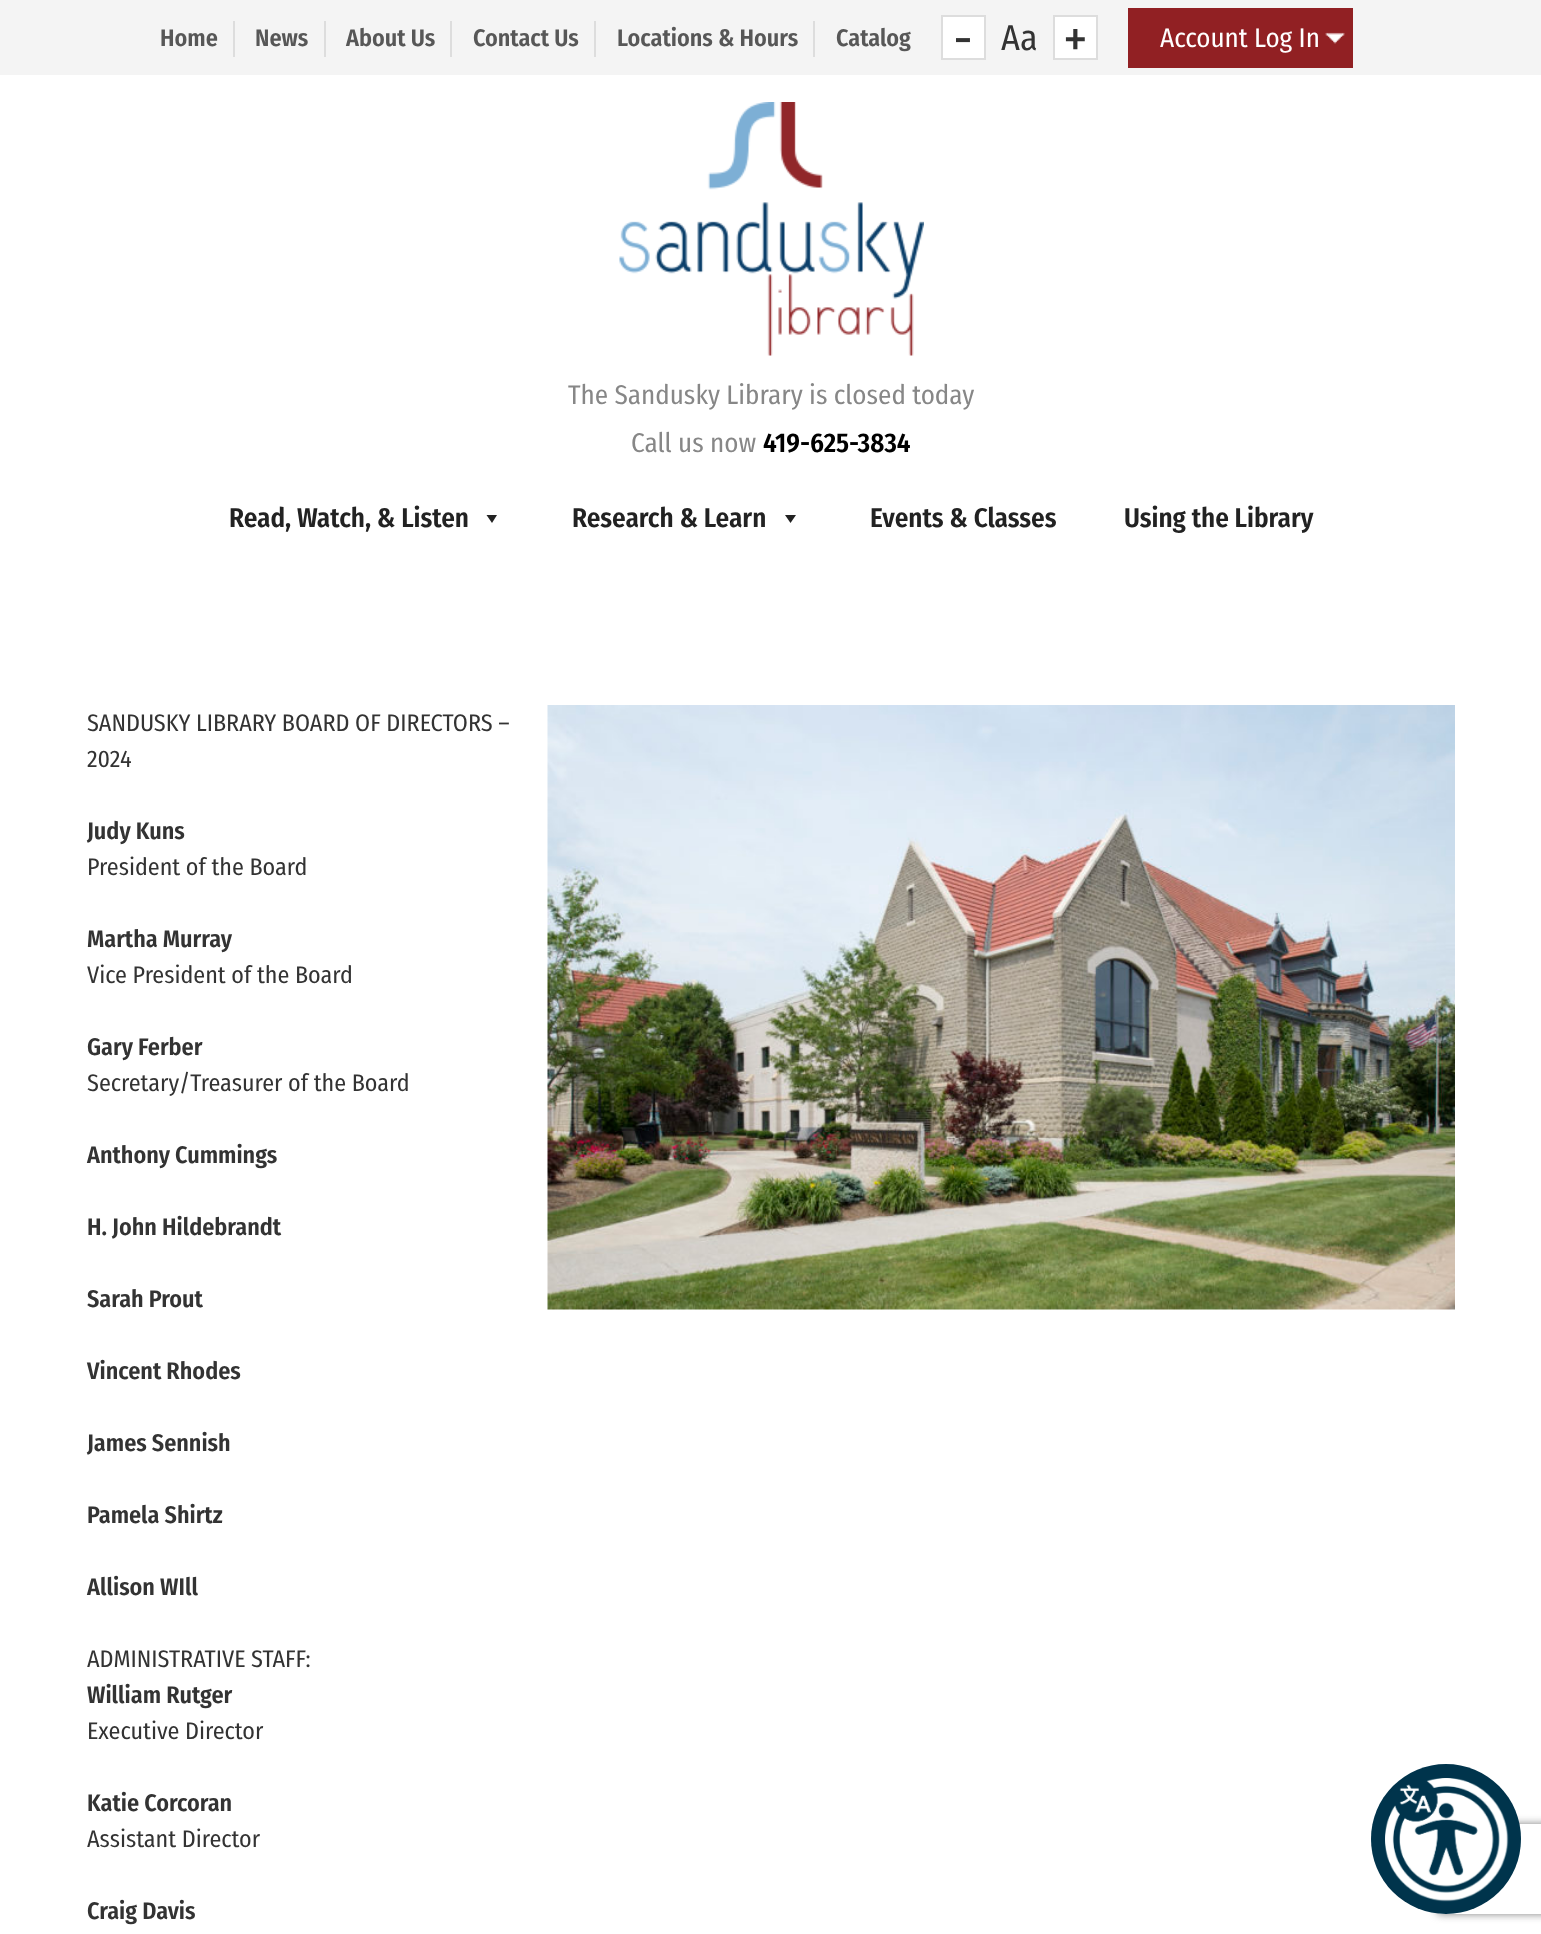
<!DOCTYPE html>
<meta charset="utf-8">
<style>body { margin: 0 } canvas { display: block }</style>
<canvas id="canvas" width="1541" height="1934"></canvas>
<script type="module">
  const canvas = document.getElementById("canvas");
  const ctx = canvas.getContext("2d");
  ctx.miterLimit = 4;
  ctx.fontKerning = "normal";
  async function loadImage(src) {
    const img = new Image();
    img.src = src;
    await img.decode();
    return img;
  }

  ctx.fillStyle = "#ffffff";
  ctx.fillRect(0, 0, 1541, 1934);
  ctx.fillStyle = "#f4f4f4";
  ctx.fillRect(0, 0, 1541, 75);
  ctx.fillStyle = "#dddddd";
  ctx.fillRect(233, 21, 2, 36);
  ctx.font = "600 24px Fira Sans Condensed";
  ctx.fillStyle = "#575757";
  ctx.fillText("Home", 160, 46);
  ctx.fillStyle = "#dddddd";
  ctx.fillRect(324, 21, 2, 36);
  ctx.fillStyle = "#575757";
  ctx.fillText("News", 255, 46);
  ctx.fillStyle = "#dddddd";
  ctx.fillRect(450, 21, 2, 36);
  ctx.fillStyle = "#575757";
  ctx.fillText("About Us", 346, 46);
  ctx.fillStyle = "#dddddd";
  ctx.fillRect(594, 21, 2, 36);
  ctx.fillStyle = "#575757";
  ctx.fillText("Contact Us", 473, 46);
  ctx.fillStyle = "#dddddd";
  ctx.fillRect(813, 21, 2, 36);
  ctx.fillStyle = "#575757";
  ctx.fillText("Locations & Hours", 617, 46);
  ctx.fillText("Catalog", 836, 46);
  ctx.fillStyle = "#ffffff";
  ctx.beginPath();
  ctx.rect(942, 16, 43, 43);
  ctx.fill();
  ctx.strokeStyle = "#dddddd";
  ctx.lineWidth = 2;
  ctx.stroke();
  ctx.font = "54px Fira Sans Condensed";
  ctx.fillStyle = "#333333";
  ctx.fillText("-", 953, 57);
  ctx.font = "36px Fira Sans Condensed";
  ctx.fillText("Aa", 1001, 50);
  ctx.fillStyle = "#ffffff";
  ctx.beginPath();
  ctx.rect(1054, 16, 43, 43);
  ctx.fill();
  ctx.stroke();
  ctx.font = "54px Fira Sans Condensed";
  ctx.fillStyle = "#333333";
  ctx.fillText("+", 1063, 57);
  ctx.fillStyle = "#912023";
  ctx.fillRect(1128, 8, 225, 60);
  ctx.font = "27px Fira Sans Condensed";
  ctx.fillStyle = "#ffffff";
  ctx.fillText("Account Log In", 1160, 47);
  ctx.drawImage(await loadImage("img1.png"), 1325, 32, 20, 12);
  ctx.drawImage(await loadImage("img2.png"), 619, 102, 305, 254);
  ctx.fillStyle = "#878787";
  ctx.fillText("The Sandusky Library is closed today", 568, 404);
  ctx.fillText("Call us now", 631, 452);
  ctx.font = "600 27px Fira Sans Condensed";
  ctx.fillStyle = "#000000";
  ctx.fillText("419-625-3834", 763, 452);
  ctx.fillStyle = "#222222";
  ctx.fillText("Read, Watch, & Listen", 229, 527);
  ctx.beginPath();
  ctx.moveTo(497, 515);
  ctx.lineTo(492, 523);
  ctx.lineTo(486.5, 515);
  ctx.closePath();
  ctx.fill();
  ctx.fillText("Research & Learn", 572, 527);
  ctx.beginPath();
  ctx.moveTo(796, 515);
  ctx.lineTo(790.5, 523);
  ctx.lineTo(785, 515);
  ctx.closePath();
  ctx.fill();
  ctx.fillText("Events & Classes", 870, 527);
  ctx.fillText("Using the Library", 1124, 527);
  ctx.font = "24px Fira Sans Condensed";
  ctx.fillStyle = "#333333";
  ctx.fillText("SANDUSKY LIBRARY BOARD OF DIRECTORS –", 87, 731);
  ctx.drawImage(await loadImage("img3.png"), 547, 705, 908, 605);
  ctx.fillText("2024", 87, 767);
  ctx.font = "600 24px Fira Sans Condensed";
  ctx.fillText("Judy Kuns", 87, 839);
  ctx.font = "24px Fira Sans Condensed";
  ctx.fillText("President of the Board", 87, 875);
  ctx.font = "600 24px Fira Sans Condensed";
  ctx.fillText("Martha Murray", 87, 947);
  ctx.font = "24px Fira Sans Condensed";
  ctx.fillText("Vice President of the Board", 87, 983);
  ctx.font = "600 24px Fira Sans Condensed";
  ctx.fillText("Gary Ferber", 87, 1055);
  ctx.font = "24px Fira Sans Condensed";
  ctx.fillText("Secretary/Treasurer of the Board", 87, 1091);
  ctx.font = "600 24px Fira Sans Condensed";
  ctx.fillText("Anthony Cummings", 87, 1163);
  ctx.fillText("H. John Hildebrandt", 87, 1235);
  ctx.fillText("Sarah Prout", 87, 1307);
  ctx.fillText("Vincent Rhodes", 87, 1379);
  ctx.fillText("James Sennish", 87, 1451);
  ctx.fillText("Pamela Shirtz", 87, 1523);
  ctx.fillText("Allison WIll", 87, 1595);
  ctx.font = "24px Fira Sans Condensed";
  ctx.fillText("ADMINISTRATIVE STAFF:", 87, 1667);
  ctx.font = "600 24px Fira Sans Condensed";
  ctx.fillText("William Rutger", 87, 1703);
  ctx.font = "24px Fira Sans Condensed";
  ctx.fillText("Executive Director", 87, 1739);
  ctx.font = "600 24px Fira Sans Condensed";
  ctx.fillText("Katie Corcoran", 87, 1811);
  ctx.font = "24px Fira Sans Condensed";
  ctx.fillText("Assistant Director", 87, 1847);
  ctx.font = "600 24px Fira Sans Condensed";
  ctx.fillText("Craig Davis", 87, 1919);
  ctx.save();
  ctx.beginPath();
  ctx.moveTo(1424, 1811);
  ctx.lineTo(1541, 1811);
  ctx.lineTo(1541, 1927);
  ctx.lineTo(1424, 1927);
  ctx.closePath();
  ctx.moveTo(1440, 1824);
  ctx.lineTo(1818, 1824);
  ctx.bezierCurveTo(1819.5, 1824, 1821, 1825.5, 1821, 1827);
  ctx.lineTo(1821, 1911);
  ctx.bezierCurveTo(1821, 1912.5, 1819.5, 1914, 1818, 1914);
  ctx.lineTo(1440, 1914);
  ctx.bezierCurveTo(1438.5, 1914, 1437, 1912.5, 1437, 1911);
  ctx.lineTo(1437, 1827);
  ctx.bezierCurveTo(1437, 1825.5, 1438.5, 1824, 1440, 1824);
  ctx.closePath();
  ctx.clip("evenodd");
  ctx.fillStyle = "#808080";
  ctx.filter = "blur(4px)";
  ctx.beginPath();
  ctx.roundRect(1437, 1824, 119, 90, 3);
  ctx.fill();
  ctx.filter = "none";
  ctx.restore();
  ctx.fillStyle = "#00344c";
  ctx.beginPath();
  ctx.arc(1446, 1839, 75, 0, Math.PI * 2);
  ctx.fill();
  ctx.drawImage(await loadImage("img4.png"), 1385, 1778, 124, 124);
</script>
